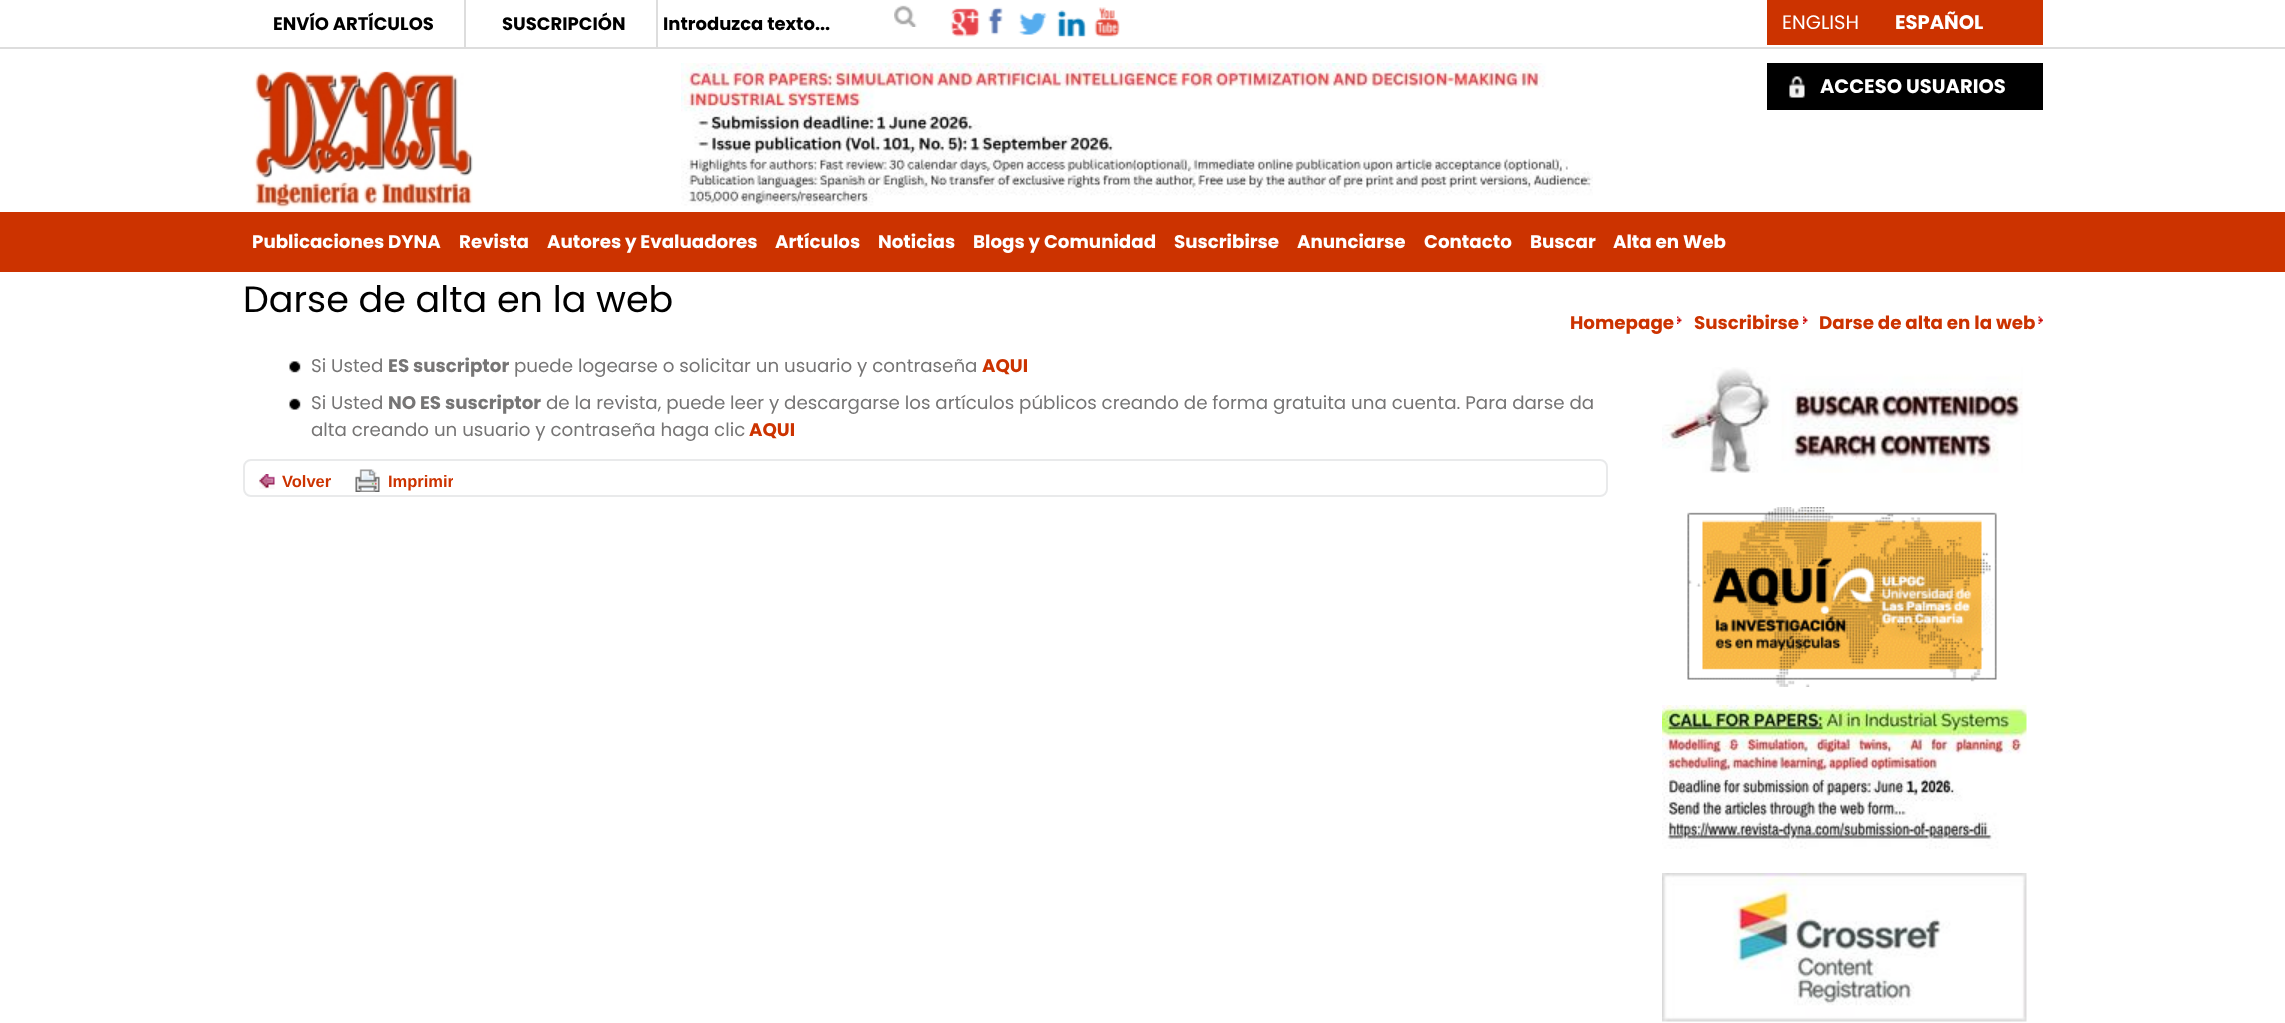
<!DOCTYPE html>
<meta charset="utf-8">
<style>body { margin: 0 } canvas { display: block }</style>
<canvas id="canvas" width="2285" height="1023"></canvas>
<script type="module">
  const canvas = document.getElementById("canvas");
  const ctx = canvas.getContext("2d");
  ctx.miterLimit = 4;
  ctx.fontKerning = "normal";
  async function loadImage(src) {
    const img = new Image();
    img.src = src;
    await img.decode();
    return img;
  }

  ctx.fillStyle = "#ffffff";
  ctx.fillRect(0, 0, 2285, 1023);
  ctx.fillStyle = "#dddddd";
  ctx.fillRect(0, 47, 2285, 2);
  ctx.fillRect(464, 0, 2, 47);
  ctx.font = "bold 18px Poppins";
  ctx.fillStyle = "#000000";
  ctx.fillText("ENVÍO ARTÍCULOS", 273, 30);
  ctx.fillStyle = "#dddddd";
  ctx.fillRect(656, 0, 2, 47);
  ctx.fillStyle = "#000000";
  ctx.fillText("SUSCRIPCIÓN", 502, 30);
  ctx.fillText("Introduzca texto...", 663, 30);
  ctx.drawImage(await loadImage("img1.png"), 894, 5, 23, 22);
  ctx.drawImage(await loadImage("img2.png"), 950, 8, 30, 29);
  ctx.drawImage(await loadImage("img3.png"), 988, 7, 15, 28);
  ctx.drawImage(await loadImage("img4.png"), 1018, 12, 29, 23);
  ctx.drawImage(await loadImage("img5.png"), 1057, 10, 29, 27);
  ctx.drawImage(await loadImage("img6.png"), 1094, 7, 26, 30);
  ctx.fillStyle = "#cc3300";
  ctx.fillRect(1767, 0, 276, 45);
  ctx.font = "19.5px Poppins";
  ctx.fillStyle = "#ffffff";
  ctx.fillText("ENGLISH", 1782, 29);
  ctx.font = "bold 19.5px Poppins";
  ctx.fillText("ESPAÑOL", 1895, 29);
  ctx.fillStyle = "#000000";
  ctx.fillRect(1767, 63, 276, 47);
  ctx.drawImage(await loadImage("img7.png"), 1789, 76, 16, 22);
  ctx.fillStyle = "#ffffff";
  ctx.fillText("ACCESO USUARIOS", 1820, 93);
  ctx.drawImage(await loadImage("img8.png"), 254, 71, 219, 138);
  ctx.drawImage(await loadImage("img9.png"), 681, 63, 912, 143);
  ctx.fillStyle = "#cc3300";
  ctx.fillRect(0, 212, 2285, 60);
  ctx.font = "bold 18.28px Poppins";
  ctx.fillStyle = "#ffffff";
  ctx.fillText("Publicaciones DYNA", 252, 248);
  ctx.fillText("Revista", 459, 248);
  ctx.fillText("Autores y Evaluadores", 547, 248);
  ctx.fillText("Artículos", 775, 248);
  ctx.fillText("Noticias", 878, 248);
  ctx.fillText("Blogs y Comunidad", 973, 248);
  ctx.fillText("Suscribirse", 1174, 248);
  ctx.fillText("Anunciarse", 1297, 248);
  ctx.fillText("Contacto", 1424, 248);
  ctx.fillText("Buscar", 1530, 248);
  ctx.fillText("Alta en Web", 1613, 248);
  ctx.font = "36.5px Poppins";
  ctx.fillStyle = "#000000";
  ctx.fillText("Darse de alta en la web", 243, 312);
  ctx.font = "bold 18.28px Poppins";
  ctx.fillStyle = "#cc3300";
  ctx.fillText("Homepage", 1570, 329);
  ctx.drawImage(await loadImage("img10.png"), 1677, 316, 5, 8);
  ctx.fillText("Suscribirse", 1694, 329);
  ctx.drawImage(await loadImage("img11.png"), 1803, 316, 5, 8);
  ctx.fillText("Darse de alta en la web", 1819, 329);
  ctx.drawImage(await loadImage("img12.png"), 2038, 316, 5, 8);
  ctx.drawImage(await loadImage("img13.png"), 289, 361, 12, 12);
  ctx.font = "18.28px Poppins";
  ctx.fillStyle = "#767575";
  ctx.fillText("Si Usted", 311, 372);
  ctx.font = "bold 18.28px Poppins";
  ctx.fillText("ES suscriptor", 388, 372);
  ctx.font = "18.28px Poppins";
  ctx.fillText("puede logearse o solicitar un usuario y contraseña", 514, 372);
  ctx.font = "bold 18.28px Poppins";
  ctx.fillStyle = "#cc3300";
  ctx.fillText("AQUI", 982, 372);
  ctx.drawImage(await loadImage("img14.png"), 289, 398, 12, 12);
  ctx.font = "18.28px Poppins";
  ctx.fillStyle = "#767575";
  ctx.fillText("Si Usted", 311, 409);
  ctx.font = "bold 18.28px Poppins";
  ctx.fillText("NO ES suscriptor", 388, 409);
  ctx.font = "18.28px Poppins";
  ctx.fillText("de la revista, puede leer y descargarse los artículos públicos creando de forma gratuita una cuenta. Para darse da", 546, 409);
  ctx.fillText("alta creando un usuario y contraseña haga clic", 311, 436);
  ctx.font = "bold 18.28px Poppins";
  ctx.fillStyle = "#cc3300";
  ctx.fillText("AQUI", 749, 436);
  ctx.beginPath();
  ctx.roundRect(244, 460, 1363, 36, 7);
  ctx.strokeStyle = "#e9eaeb";
  ctx.lineWidth = 2;
  ctx.stroke();
  ctx.drawImage(await loadImage("img15.png"), 259, 474, 16, 15);
  ctx.font = "bold 16.5px Liberation Sans";
  ctx.fillText("Volver", 282, 487);
  ctx.drawImage(await loadImage("img16.png"), 355, 469, 25, 23);
  ctx.save();
  ctx.beginPath();
  ctx.rect(356, 467, 97, 30);
  ctx.clip();
  ctx.fillText("Imprimir", 388, 487);
  ctx.restore();
  ctx.drawImage(await loadImage("img17.png"), 1662, 367, 361, 106);
  ctx.drawImage(await loadImage("img18.png"), 1687, 507, 310, 180);
  ctx.drawImage(await loadImage("img19.png"), 1662, 705, 365, 144);
  ctx.drawImage(await loadImage("img20.png"), 1662, 873, 365, 149);
</script>
